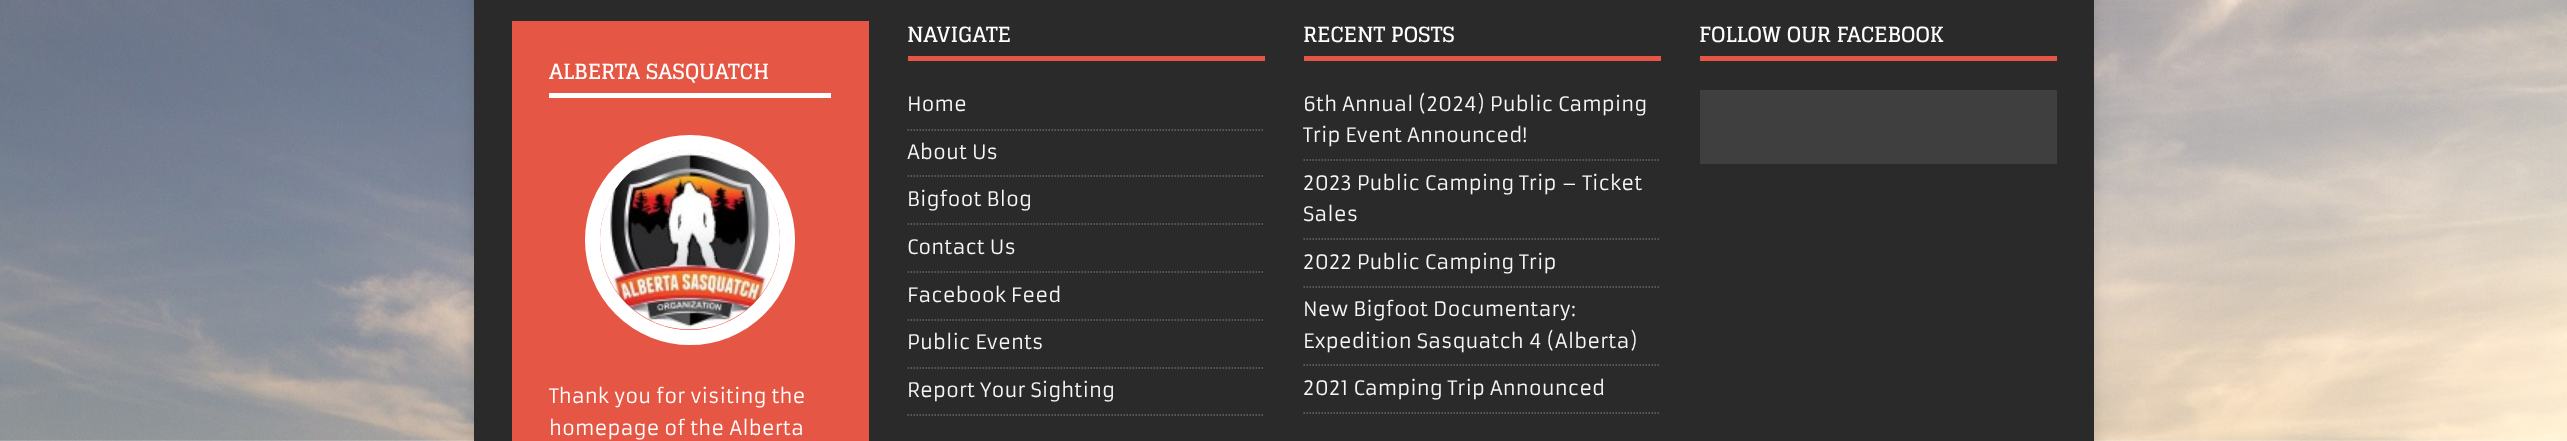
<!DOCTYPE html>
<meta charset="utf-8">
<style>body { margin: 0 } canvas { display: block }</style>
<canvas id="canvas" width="2567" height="441"></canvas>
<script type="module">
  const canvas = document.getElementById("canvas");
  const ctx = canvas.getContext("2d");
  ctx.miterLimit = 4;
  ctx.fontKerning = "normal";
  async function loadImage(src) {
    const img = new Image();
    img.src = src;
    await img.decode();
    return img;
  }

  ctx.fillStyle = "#ffffff";
  ctx.fillRect(0, 0, 2567, 441);
  ctx.drawImage(await loadImage("img1.png"), 0, 0, 2567, 441);
  ctx.fillStyle = "rgba(50, 50, 50, 0.17)";
  ctx.filter = "blur(7.5px)";
  ctx.beginPath();
  ctx.rect(474, -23, 1620, 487);
  ctx.fill();
  ctx.filter = "none";
  ctx.fillStyle = "#2a2a2a";
  ctx.fillRect(474, 0, 1620, 441);
  ctx.fillStyle = "#e55744";
  ctx.fillRect(908, 56, 357, 5);
  ctx.font = "bold 21px Glegoo";
  ctx.fillStyle = "#ffffff";
  ctx.fillText("NAVIGATE", 907, 42);
  ctx.beginPath();
  ctx.moveTo(907.5, 130);
  ctx.lineTo(1264.5, 130);
  ctx.strokeStyle = "#6a6a6a";
  ctx.lineWidth = 1.5;
  ctx.setLineDash([1.5, 1.5]);
  ctx.stroke();
  ctx.font = "19.5px Armata";
  ctx.fillStyle = "#f7f7f7";
  ctx.fillText("Home", 907, 111);
  ctx.beginPath();
  ctx.moveTo(907.5, 176);
  ctx.lineTo(1264.5, 176);
  ctx.stroke();
  ctx.fillText("About Us", 907, 159);
  ctx.beginPath();
  ctx.moveTo(907.5, 224);
  ctx.lineTo(1264.5, 224);
  ctx.stroke();
  ctx.fillText("Bigfoot Blog", 907, 206);
  ctx.beginPath();
  ctx.moveTo(907.5, 272);
  ctx.lineTo(1264.5, 272);
  ctx.stroke();
  ctx.fillText("Contact Us", 907, 254);
  ctx.beginPath();
  ctx.moveTo(907.5, 320);
  ctx.lineTo(1264.5, 320);
  ctx.stroke();
  ctx.fillText("Facebook Feed", 907, 302);
  ctx.beginPath();
  ctx.moveTo(907.5, 368);
  ctx.lineTo(1264.5, 368);
  ctx.stroke();
  ctx.fillText("Public Events", 907, 349);
  ctx.beginPath();
  ctx.moveTo(907.5, 415);
  ctx.lineTo(1264.5, 415);
  ctx.stroke();
  ctx.fillText("Report Your Sighting", 907, 397);
  ctx.fillStyle = "#e55744";
  ctx.fillRect(1304, 56, 357, 5);
  ctx.font = "bold 21px Glegoo";
  ctx.fillStyle = "#ffffff";
  ctx.fillText("RECENT POSTS", 1303, 42);
  ctx.beginPath();
  ctx.moveTo(1303.5, 160);
  ctx.lineTo(1660.5, 160);
  ctx.stroke();
  ctx.font = "19.5px Armata";
  ctx.fillStyle = "#f7f7f7";
  ctx.fillText("6th Annual (2024) Public Camping", 1303, 111);
  ctx.fillText("Trip Event Announced!", 1303, 142);
  ctx.beginPath();
  ctx.moveTo(1303.5, 239);
  ctx.lineTo(1660.5, 239);
  ctx.stroke();
  ctx.fillText("2023 Public Camping Trip – Ticket", 1303, 190);
  ctx.fillText("Sales", 1303, 221);
  ctx.beginPath();
  ctx.moveTo(1303.5, 287);
  ctx.lineTo(1660.5, 287);
  ctx.stroke();
  ctx.fillText("2022 Public Camping Trip", 1303, 269);
  ctx.beginPath();
  ctx.moveTo(1303.5, 365);
  ctx.lineTo(1660.5, 365);
  ctx.stroke();
  ctx.fillText("New Bigfoot Documentary:", 1303, 316);
  ctx.fillText("Expedition Sasquatch 4 (Alberta)", 1303, 348);
  ctx.beginPath();
  ctx.moveTo(1303.5, 413);
  ctx.lineTo(1660.5, 413);
  ctx.stroke();
  ctx.fillText("2021 Camping Trip Announced", 1303, 395);
  ctx.fillStyle = "#e55744";
  ctx.fillRect(1700, 56, 357, 5);
  ctx.font = "bold 21px Glegoo";
  ctx.fillStyle = "#ffffff";
  ctx.fillText("FOLLOW OUR FACEBOOK", 1699, 42);
  ctx.fillStyle = "#3f3f3f";
  ctx.fillRect(1700, 90, 357, 74);
  ctx.fillStyle = "#e55744";
  ctx.fillRect(512, 21, 357, 420);
  ctx.fillStyle = "#ffffff";
  ctx.fillRect(549, 93, 282, 5);
  ctx.fillText("ALBERTA SASQUATCH", 549, 79);
  ctx.beginPath();
  ctx.arc(690, 240, 97.5, 0, Math.PI * 2);
  ctx.strokeStyle = "#ffffff";
  ctx.lineWidth = 15;
  ctx.setLineDash([]);
  ctx.stroke();
  ctx.drawImage(await loadImage("img2.png"), 600, 150, 180, 180);
  ctx.font = "19.5px Armata";
  ctx.fillText("Thank you for visiting the", 549, 403);
  ctx.fillText("homepage of the Alberta", 549, 435);
</script>
